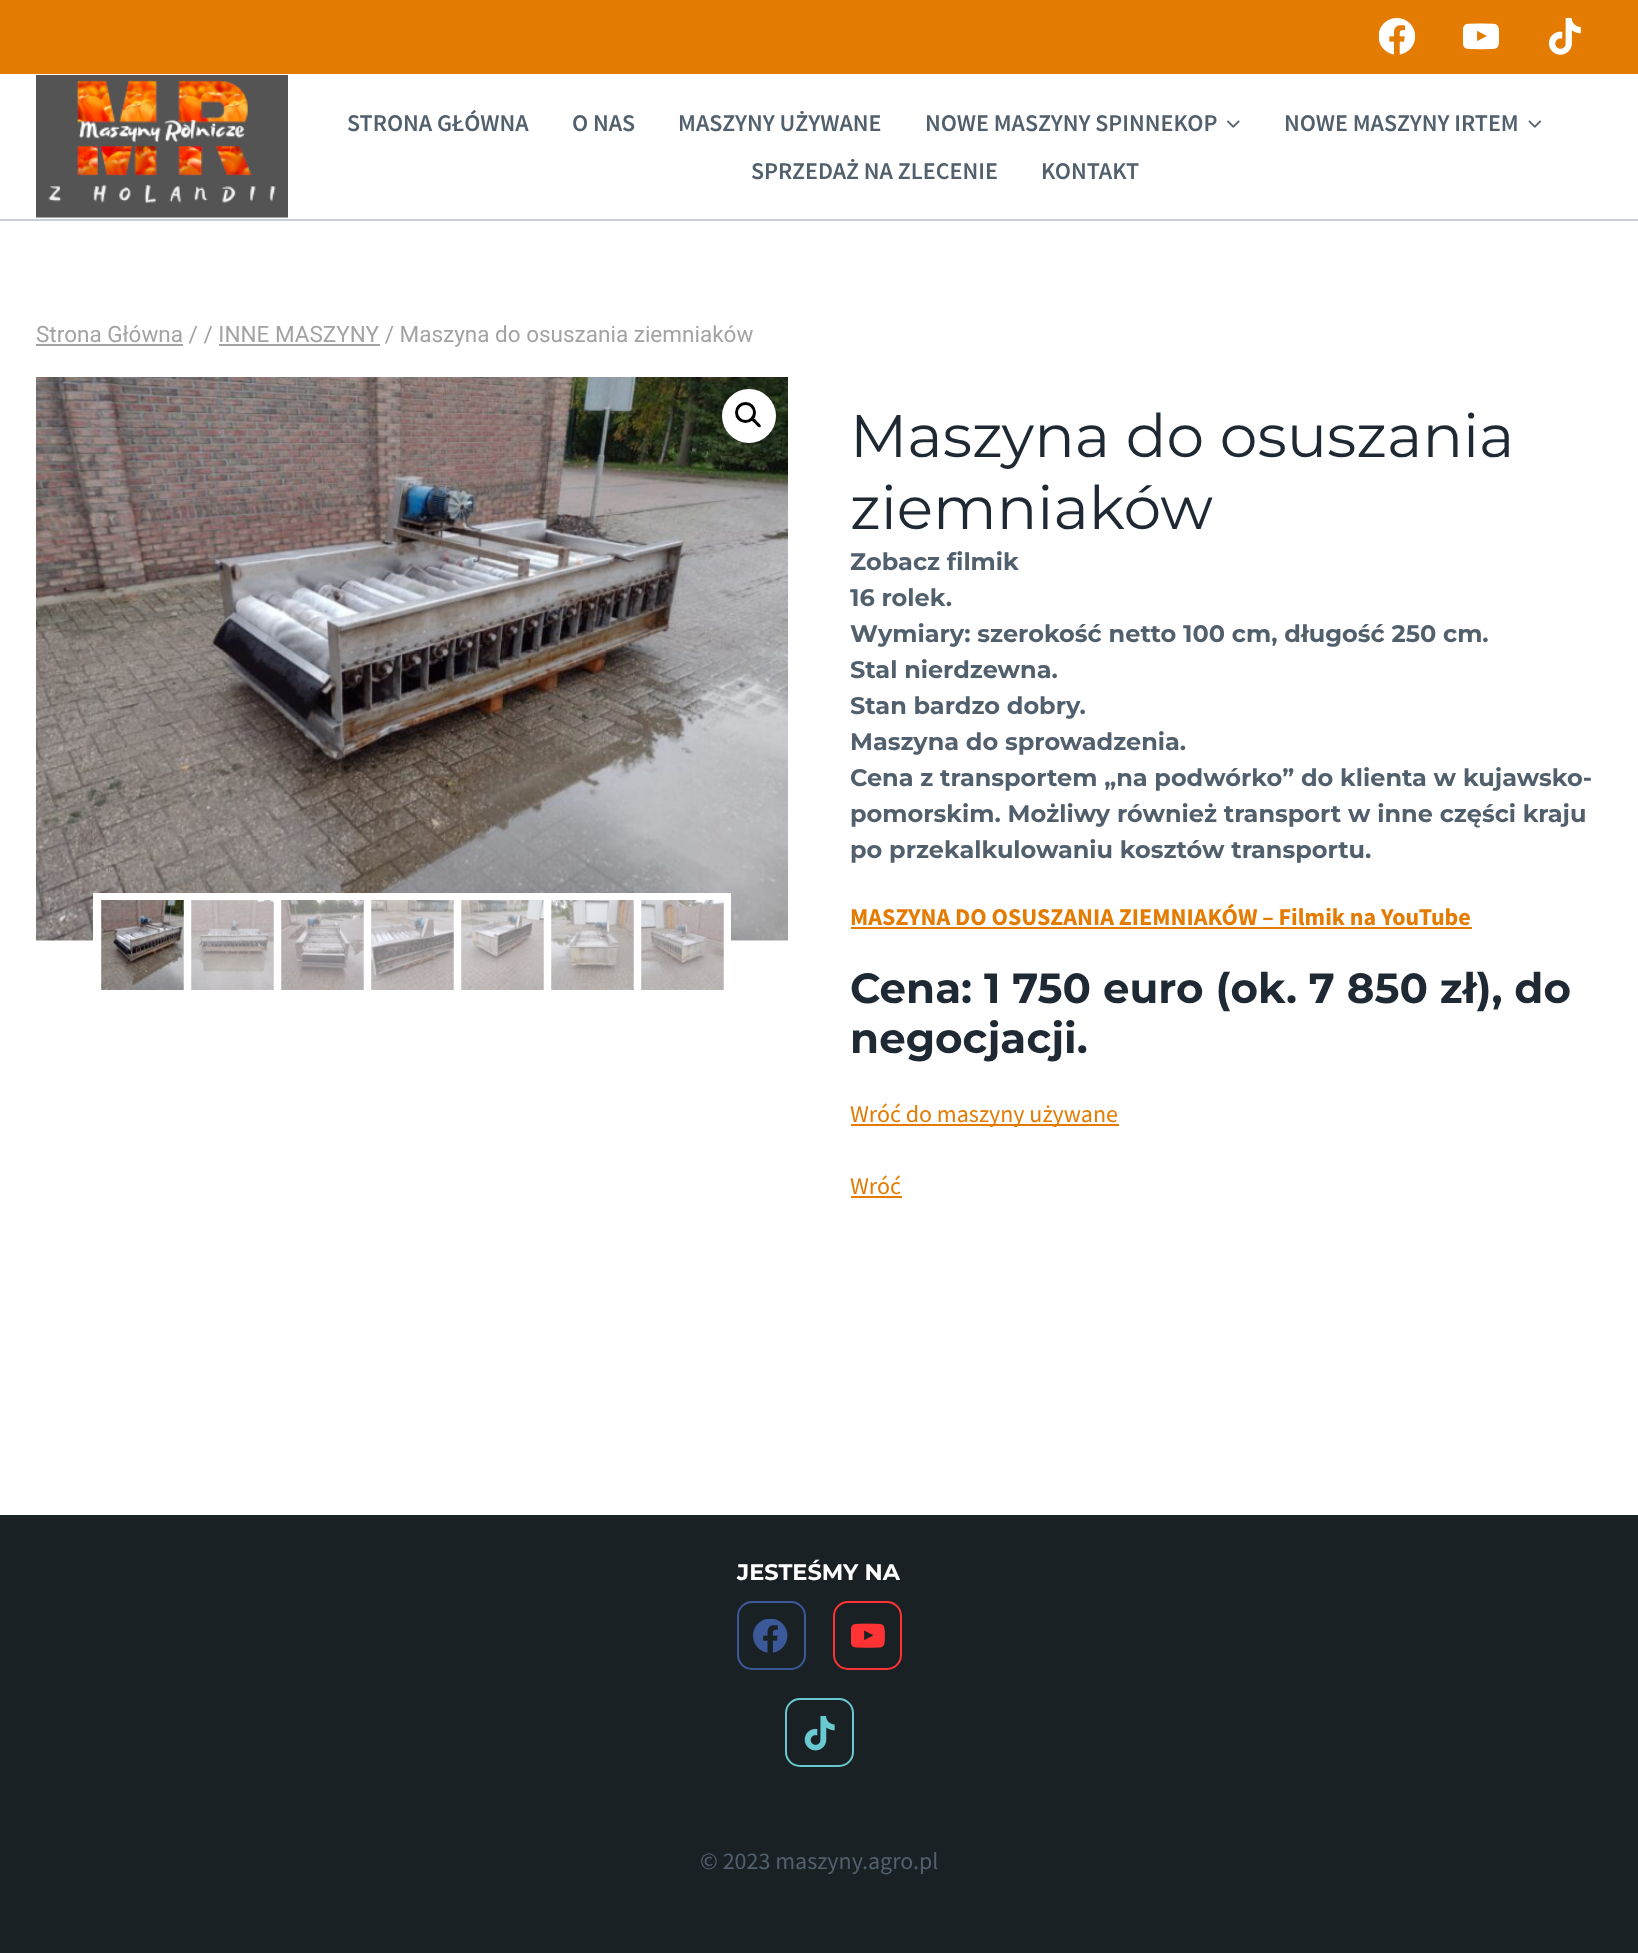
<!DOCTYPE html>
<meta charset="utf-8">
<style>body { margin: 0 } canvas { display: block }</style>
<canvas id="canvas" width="1638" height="1953"></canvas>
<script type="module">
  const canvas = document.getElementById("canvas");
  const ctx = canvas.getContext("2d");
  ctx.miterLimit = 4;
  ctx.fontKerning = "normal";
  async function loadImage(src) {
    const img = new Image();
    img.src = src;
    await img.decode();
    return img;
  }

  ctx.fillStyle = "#ffffff";
  ctx.fillRect(0, 0, 1638, 1953);
  ctx.fillStyle = "#e47b02";
  ctx.fillRect(0, 0, 1638, 74);
  ctx.drawImage(await loadImage("img1.png"), 1379, 18, 36, 37);
  ctx.drawImage(await loadImage("img2.png"), 1463, 23, 36, 27);
  ctx.drawImage(await loadImage("img3.png"), 1548, 18, 33, 37);
  ctx.fillStyle = "#cbcfd3";
  ctx.fillRect(0, 219, 1638, 2);
  ctx.drawImage(await loadImage("img4.png"), 36, 75, 252, 143);
  ctx.font = "600 24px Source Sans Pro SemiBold";
  ctx.fillStyle = "#52606d";
  ctx.fillText("STRONA GŁÓWNA", 347, 131);
  ctx.fillText("O NAS", 572, 131);
  ctx.fillText("MASZYNY UŻYWANE", 678, 131);
  ctx.fillText("NOWE MASZYNY SPINNEKOP", 925, 131);
  ctx.drawImage(await loadImage("img5.png"), 1227, 120, 13, 8);
  ctx.fillText("NOWE MASZYNY IRTEM", 1284, 131);
  ctx.drawImage(await loadImage("img6.png"), 1528, 120, 13, 8);
  ctx.fillText("SPRZEDAŻ NA ZLECENIE", 751, 179);
  ctx.fillText("KONTAKT", 1041, 179);
  ctx.fillStyle = "#a3a3a3";
  ctx.fillRect(36, 344, 147, 2);
  ctx.font = "22.5px Roboto";
  ctx.fillText("Strona Główna / / INNE MASZYNY / Maszyna do osuszania ziemniaków", 36, 342);
  ctx.fillRect(219, 344, 161, 2);
  ctx.drawImage(await loadImage("img7.png"), 36, 377, 752, 564);
  ctx.fillStyle = "#ffffff";
  ctx.beginPath();
  ctx.arc(749, 416, 27, 0, Math.PI * 2);
  ctx.fill();
  ctx.beginPath();
  ctx.arc(745.5, 412.5, 9, 0, Math.PI * 2);
  ctx.strokeStyle = "#000000";
  ctx.lineWidth = 3;
  ctx.stroke();
  ctx.fillStyle = "#000000";
  ctx.beginPath();
  ctx.moveTo(752, 418.5);
  ctx.bezierCurveTo(753.5, 416.5, 756.5, 420.5, 757, 421.5);
  ctx.bezierCurveTo(758, 422.5, 762, 425, 760.5, 427);
  ctx.bezierCurveTo(758.5, 428.5, 756, 424.5, 755, 423.5);
  ctx.bezierCurveTo(754, 422.5, 750, 420, 752, 418.5);
  ctx.closePath();
  ctx.fill();
  ctx.fillStyle = "#ffffff";
  ctx.fillRect(93, 893, 638, 48);
  ctx.drawImage(await loadImage("img8.png"), 101, 900, 83, 90);
  ctx.drawImage(await loadImage("img9.png"), 191, 900, 83, 90);
  ctx.drawImage(await loadImage("img10.png"), 281, 900, 83, 90);
  ctx.drawImage(await loadImage("img11.png"), 371, 900, 83, 90);
  ctx.drawImage(await loadImage("img12.png"), 461, 900, 83, 90);
  ctx.drawImage(await loadImage("img13.png"), 551, 900, 83, 90);
  ctx.drawImage(await loadImage("img14.png"), 641, 900, 83, 90);
  ctx.font = "60px Montserrat";
  ctx.fillStyle = "#1f2933";
  ctx.fillText("Maszyna do osuszania", 850, 457);
  ctx.fillText("ziemniaków", 850, 529);
  ctx.font = "bold 24px Montserrat";
  ctx.fillStyle = "#52606d";
  ctx.fillText("Zobacz filmik", 850, 570);
  ctx.fillText("16 rolek.", 850, 606);
  ctx.fillText("Wymiary: szerokość netto 100 cm, długość 250 cm.", 850, 642);
  ctx.fillText("Stal nierdzewna.", 850, 678);
  ctx.fillText("Stan bardzo dobry.", 850, 714);
  ctx.fillText("Maszyna do sprowadzenia.", 850, 750);
  ctx.fillText("Cena z transportem „na podwórko” do klienta w kujawsko-", 850, 786);
  ctx.fillText("pomorskim. Możliwy również transport w inne części kraju", 850, 822);
  ctx.fillText("po przekalkulowaniu kosztów transportu.", 850, 858);
  ctx.font = "bold 24px Source Sans Pro";
  ctx.fillStyle = "#e47b02";
  ctx.fillText("MASZYNA DO OSUSZANIA ZIEMNIAKÓW – Filmik na YouTube", 850, 925);
  ctx.fillRect(851, 927, 621, 2);
  ctx.font = "bold 42px Montserrat";
  ctx.fillStyle = "#1f2933";
  ctx.fillText("Cena: 1 750 euro (ok. 7 850 zł), do", 850, 1003);
  ctx.fillText("negocjacji.", 850, 1053);
  ctx.fillStyle = "#e47b02";
  ctx.fillRect(851, 1124, 268, 2);
  ctx.font = "24px Source Sans Pro";
  ctx.fillText("Wróć do maszyny używane", 850, 1122);
  ctx.fillText("Wróć", 850, 1194);
  ctx.fillRect(851, 1196, 51, 2);
  ctx.fillStyle = "#1a2125";
  ctx.fillRect(0, 1515, 1638, 438);
  ctx.font = "bold 22.5px Montserrat";
  ctx.fillStyle = "#ffffff";
  ctx.fillText("JESTEŚMY NA", 737, 1580);
  ctx.beginPath();
  ctx.roundRect(738, 1602, 67, 67, 14);
  ctx.strokeStyle = "#3b5998";
  ctx.lineWidth = 2;
  ctx.stroke();
  ctx.drawImage(await loadImage("img15.png"), 753, 1619, 35, 34);
  ctx.beginPath();
  ctx.roundRect(834, 1602, 67, 67, 14);
  ctx.strokeStyle = "#ff3333";
  ctx.stroke();
  ctx.drawImage(await loadImage("img16.png"), 851, 1623, 34, 25);
  ctx.beginPath();
  ctx.roundRect(786, 1699, 67, 67, 14);
  ctx.strokeStyle = "#69c9d0";
  ctx.stroke();
  ctx.drawImage(await loadImage("img17.png"), 804, 1716, 31, 35);
  ctx.font = "24px Source Sans Pro";
  ctx.fillStyle = "#52606d";
  ctx.fillText("© 2023 maszyny.agro.pl", 700, 1869);
</script>
